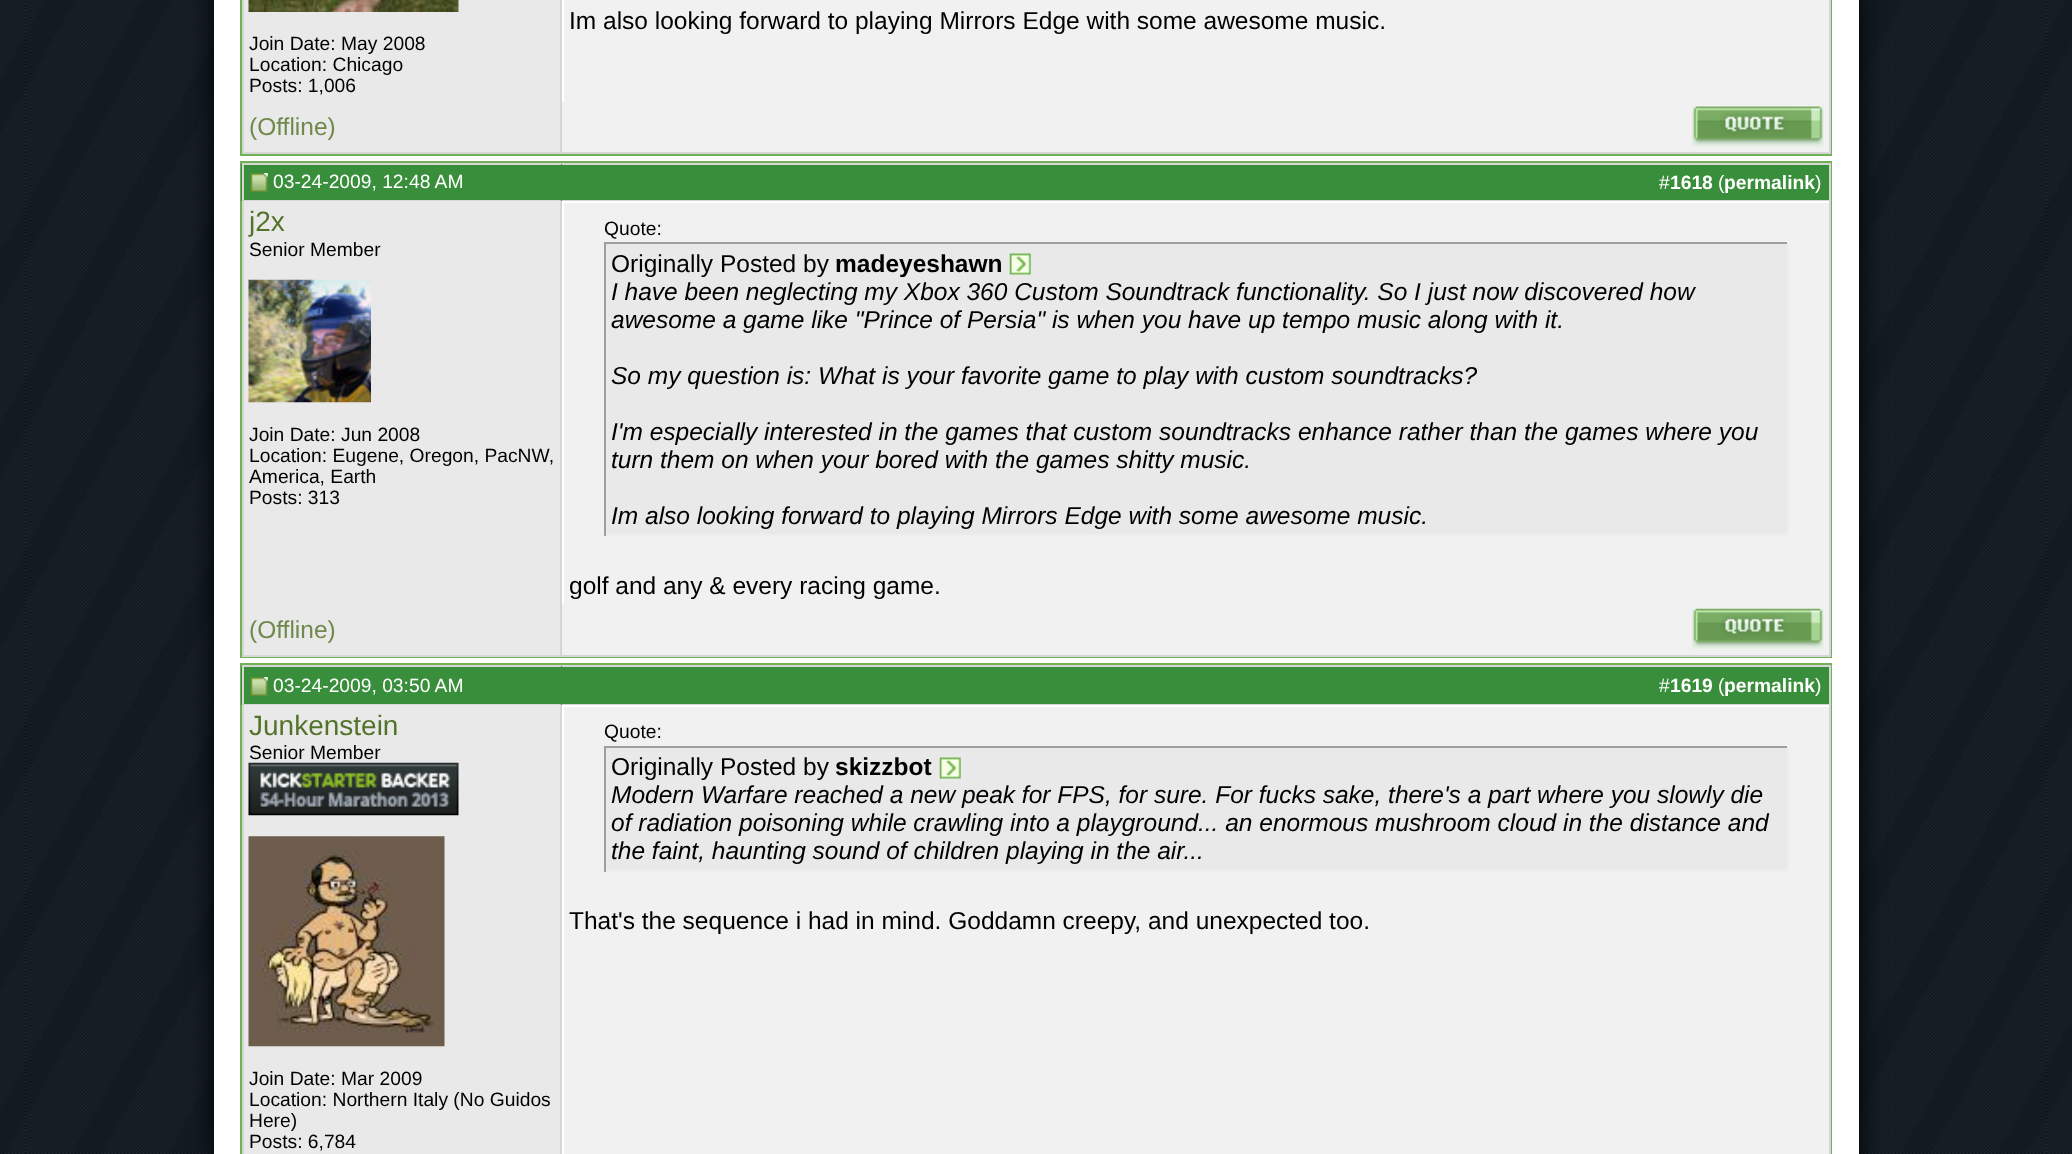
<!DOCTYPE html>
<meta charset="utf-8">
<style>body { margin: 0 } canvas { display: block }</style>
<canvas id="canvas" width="2072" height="1154"></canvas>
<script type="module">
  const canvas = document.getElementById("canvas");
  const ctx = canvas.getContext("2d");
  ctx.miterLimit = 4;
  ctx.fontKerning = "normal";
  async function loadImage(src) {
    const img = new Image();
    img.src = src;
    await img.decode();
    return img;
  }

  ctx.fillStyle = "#ffffff";
  ctx.fillRect(0, 0, 2072, 1154);
  ctx.drawImage(await loadImage("img1.png"), 0, 0, 2072, 1154);
  ctx.fillStyle = "#000000";
  ctx.filter = "blur(13px)";
  ctx.beginPath();
  ctx.rect(214, -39, 1645, 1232);
  ctx.fill();
  ctx.filter = "none";
  ctx.fillStyle = "#ffffff";
  ctx.fillRect(214, 0, 1645, 1154);
  ctx.strokeStyle = "#72b256";
  ctx.lineWidth = 2;
  ctx.strokeRect(241, -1, 1590, 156);
  ctx.fillStyle = "#f1f1f1";
  ctx.fillRect(564, 0, 1265, 102);
  ctx.fillStyle = "#d6d6d6";
  ctx.fillRect(1829, 0, 2, 154);
  ctx.font = "24.5px Liberation Sans";
  ctx.fillStyle = "#000000";
  ctx.fillText("Im also looking forward to playing Mirrors Edge with some awesome music.", 569, 29);
  ctx.fillStyle = "#e9e9e9";
  ctx.fillRect(244, 0, 316, 152);
  ctx.fillStyle = "#d6d6d6";
  ctx.fillRect(560, 0, 2, 154);
  ctx.fillRect(242, 0, 2, 102);
  ctx.drawImage(await loadImage("img2.png"), 248, 0, 211, 12);
  ctx.font = "19.25px Liberation Sans";
  ctx.fillStyle = "#000000";
  ctx.fillText("Join Date: May 2008", 249, 50);
  ctx.fillText("Location: Chicago", 249, 71);
  ctx.fillText("Posts: 1,006", 249, 92);
  ctx.fillStyle = "#d6d6d6";
  ctx.fillRect(242, 152, 1589, 2);
  ctx.fillRect(242, 102, 2, 52);
  ctx.font = "24.5px Liberation Sans";
  ctx.fillStyle = "#708a4d";
  ctx.fillText("(Offline)", 249, 135);
  ctx.fillStyle = "#f1f1f1";
  ctx.fillRect(562, 102, 1267, 50);
  ctx.drawImage(await loadImage("img3.png"), 1692, 106, 132, 41);
  ctx.strokeRect(241, 162, 1590, 495);
  ctx.fillStyle = "#388e3a";
  ctx.fillRect(241, 164, 320, 37);
  ctx.fillStyle = "#d6d6d6";
  ctx.fillRect(242, 163, 320, 2);
  ctx.fillRect(242, 200, 320, 1);
  ctx.fillRect(242, 163, 2, 441);
  ctx.drawImage(await loadImage("img4.png"), 250, 173, 18, 20);
  ctx.font = "19.25px Liberation Sans";
  ctx.fillStyle = "#ffffff";
  ctx.fillText("03-24-2009, 12:48 AM", 273, 188);
  ctx.fillStyle = "#388e3a";
  ctx.fillRect(561, 164, 1268, 37);
  ctx.fillStyle = "#d6d6d6";
  ctx.fillRect(562, 163, 1269, 2);
  ctx.fillRect(1829, 163, 2, 38);
  ctx.fillRect(562, 200, 1269, 1);
  ctx.fillStyle = "#ffffff";
  ctx.fillText("#", 1659, 189);
  ctx.font = "bold 19.25px Liberation Sans";
  ctx.fillText("1618", 1670, 189);
  ctx.font = "19.25px Liberation Sans";
  ctx.fillText("(", 1718, 189);
  ctx.font = "bold 19.25px Liberation Sans";
  ctx.fillText("permalink", 1724, 189);
  ctx.font = "19.25px Liberation Sans";
  ctx.fillText(")", 1815, 189);
  ctx.fillStyle = "#e9e9e9";
  ctx.fillRect(244, 201, 316, 454);
  ctx.fillStyle = "#d6d6d6";
  ctx.fillRect(560, 201, 2, 455);
  ctx.font = "28px Liberation Sans";
  ctx.fillStyle = "#54732a";
  ctx.fillText("j2x", 249, 231);
  ctx.font = "19.25px Liberation Sans";
  ctx.fillStyle = "#000000";
  ctx.fillText("Senior Member", 249, 256);
  ctx.drawImage(await loadImage("img5.png"), 248, 279, 123, 124);
  ctx.fillText("Join Date: Jun 2008", 249, 441);
  ctx.fillText("Location: Eugene, Oregon, PacNW,", 249, 462);
  ctx.fillText("America, Earth", 249, 483);
  ctx.fillText("Posts: 313", 249, 504);
  ctx.fillStyle = "#f1f1f1";
  ctx.fillRect(564, 203, 1265, 401);
  ctx.fillStyle = "#ffffff";
  ctx.fillRect(1830, 201, 1, 2);
  ctx.fillStyle = "#d6d6d6";
  ctx.fillRect(1829, 201, 2, 455);
  ctx.fillStyle = "#000000";
  ctx.fillText("Quote:", 604, 235);
  ctx.fillStyle = "#e9e9e9";
  ctx.fillRect(606, 244, 1181, 290);
  ctx.fillStyle = "#9f9f9f";
  ctx.fillRect(604, 242, 1185, 2);
  ctx.fillStyle = "#eeeeee";
  ctx.fillRect(1787, 242, 2, 294);
  ctx.fillRect(604, 534, 1185, 2);
  ctx.fillStyle = "#9f9f9f";
  ctx.fillRect(604, 242, 2, 294);
  ctx.font = "24.5px Liberation Sans";
  ctx.fillStyle = "#000000";
  ctx.fillText("Originally Posted by", 611, 272);
  ctx.font = "bold 24.5px Liberation Sans";
  ctx.fillText("madeyeshawn", 835, 272);
  ctx.drawImage(await loadImage("img6.png"), 1009, 253, 22, 22);
  ctx.font = "italic 24.5px Liberation Sans";
  ctx.fillText("I have been neglecting my Xbox 360 Custom Soundtrack functionality. So I just now discovered how", 611, 300);
  ctx.fillText("awesome a game like \"Prince of Persia\" is when you have up tempo music along with it.", 611, 328);
  ctx.fillText("So my question is: What is your favorite game to play with custom soundtracks?", 611, 384);
  ctx.fillText("I'm especially interested in the games that custom soundtracks enhance rather than the games where you", 611, 440);
  ctx.fillText("turn them on when your bored with the games shitty music.", 611, 468);
  ctx.fillText("Im also looking forward to playing Mirrors Edge with some awesome music.", 611, 524);
  ctx.font = "24.5px Liberation Sans";
  ctx.fillText("golf and any & every racing game.", 569, 594);
  ctx.fillStyle = "#d6d6d6";
  ctx.fillRect(242, 655, 1589, 2);
  ctx.fillRect(242, 604, 2, 52);
  ctx.fillStyle = "#708a4d";
  ctx.fillText("(Offline)", 249, 638);
  ctx.fillStyle = "#f1f1f1";
  ctx.fillRect(562, 604, 1267, 51);
  ctx.drawImage(await loadImage("img7.png"), 1692, 608, 132, 41);
  ctx.strokeRect(241, 664, 1590, 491);
  ctx.fillStyle = "#388e3a";
  ctx.fillRect(241, 666, 320, 39);
  ctx.fillStyle = "#d6d6d6";
  ctx.fillRect(242, 665, 320, 2);
  ctx.fillRect(242, 704, 320, 1);
  ctx.fillRect(242, 665, 2, 489);
  ctx.drawImage(await loadImage("img4.png"), 250, 677, 18, 20);
  ctx.font = "19.25px Liberation Sans";
  ctx.fillStyle = "#ffffff";
  ctx.fillText("03-24-2009, 03:50 AM", 273, 692);
  ctx.fillStyle = "#388e3a";
  ctx.fillRect(561, 666, 1268, 39);
  ctx.fillStyle = "#d6d6d6";
  ctx.fillRect(562, 665, 1269, 2);
  ctx.fillRect(1829, 665, 2, 40);
  ctx.fillRect(562, 704, 1269, 1);
  ctx.fillStyle = "#ffffff";
  ctx.fillText("#", 1659, 692);
  ctx.font = "bold 19.25px Liberation Sans";
  ctx.fillText("1619", 1670, 692);
  ctx.font = "19.25px Liberation Sans";
  ctx.fillText("(", 1718, 692);
  ctx.font = "bold 19.25px Liberation Sans";
  ctx.fillText("permalink", 1724, 692);
  ctx.font = "19.25px Liberation Sans";
  ctx.fillText(")", 1815, 692);
  ctx.fillStyle = "#e9e9e9";
  ctx.fillRect(244, 705, 316, 449);
  ctx.fillStyle = "#d6d6d6";
  ctx.fillRect(560, 705, 2, 449);
  ctx.font = "28px Liberation Sans";
  ctx.fillStyle = "#54732a";
  ctx.fillText("Junkenstein", 249, 735);
  ctx.font = "19.25px Liberation Sans";
  ctx.fillStyle = "#000000";
  ctx.fillText("Senior Member", 249, 759);
  ctx.drawImage(await loadImage("img8.png"), 248, 762, 211, 54);
  ctx.drawImage(await loadImage("img9.png"), 248, 836, 197, 211);
  ctx.fillText("Join Date: Mar 2009", 249, 1085);
  ctx.fillText("Location: Northern Italy (No Guidos", 249, 1106);
  ctx.fillText("Here)", 249, 1127);
  ctx.fillText("Posts: 6,784", 249, 1148);
  ctx.fillStyle = "#f1f1f1";
  ctx.fillRect(564, 707, 1265, 447);
  ctx.fillStyle = "#ffffff";
  ctx.fillRect(1830, 705, 1, 2);
  ctx.fillStyle = "#d6d6d6";
  ctx.fillRect(1829, 705, 2, 449);
  ctx.fillStyle = "#000000";
  ctx.fillText("Quote:", 604, 738);
  ctx.fillStyle = "#e9e9e9";
  ctx.fillRect(606, 748, 1181, 122);
  ctx.fillStyle = "#9f9f9f";
  ctx.fillRect(604, 746, 1185, 2);
  ctx.fillStyle = "#eeeeee";
  ctx.fillRect(1787, 746, 2, 126);
  ctx.fillRect(604, 870, 1185, 2);
  ctx.fillStyle = "#9f9f9f";
  ctx.fillRect(604, 746, 2, 126);
  ctx.font = "24.5px Liberation Sans";
  ctx.fillStyle = "#000000";
  ctx.fillText("Originally Posted by", 611, 775);
  ctx.font = "bold 24.5px Liberation Sans";
  ctx.fillText("skizzbot", 835, 775);
  ctx.drawImage(await loadImage("img10.png"), 939, 757, 22, 22);
  ctx.font = "italic 24.5px Liberation Sans";
  ctx.fillText("Modern Warfare reached a new peak for FPS, for sure. For fucks sake, there's a part where you slowly die", 611, 803);
  ctx.fillText("of radiation poisoning while crawling into a playground... an enormous mushroom cloud in the distance and", 611, 831);
  ctx.fillText("the faint, haunting sound of children playing in the air...", 611, 859);
  ctx.font = "24.5px Liberation Sans";
  ctx.fillText("That's the sequence i had in mind. Goddamn creepy, and unexpected too.", 569, 929);
</script>
